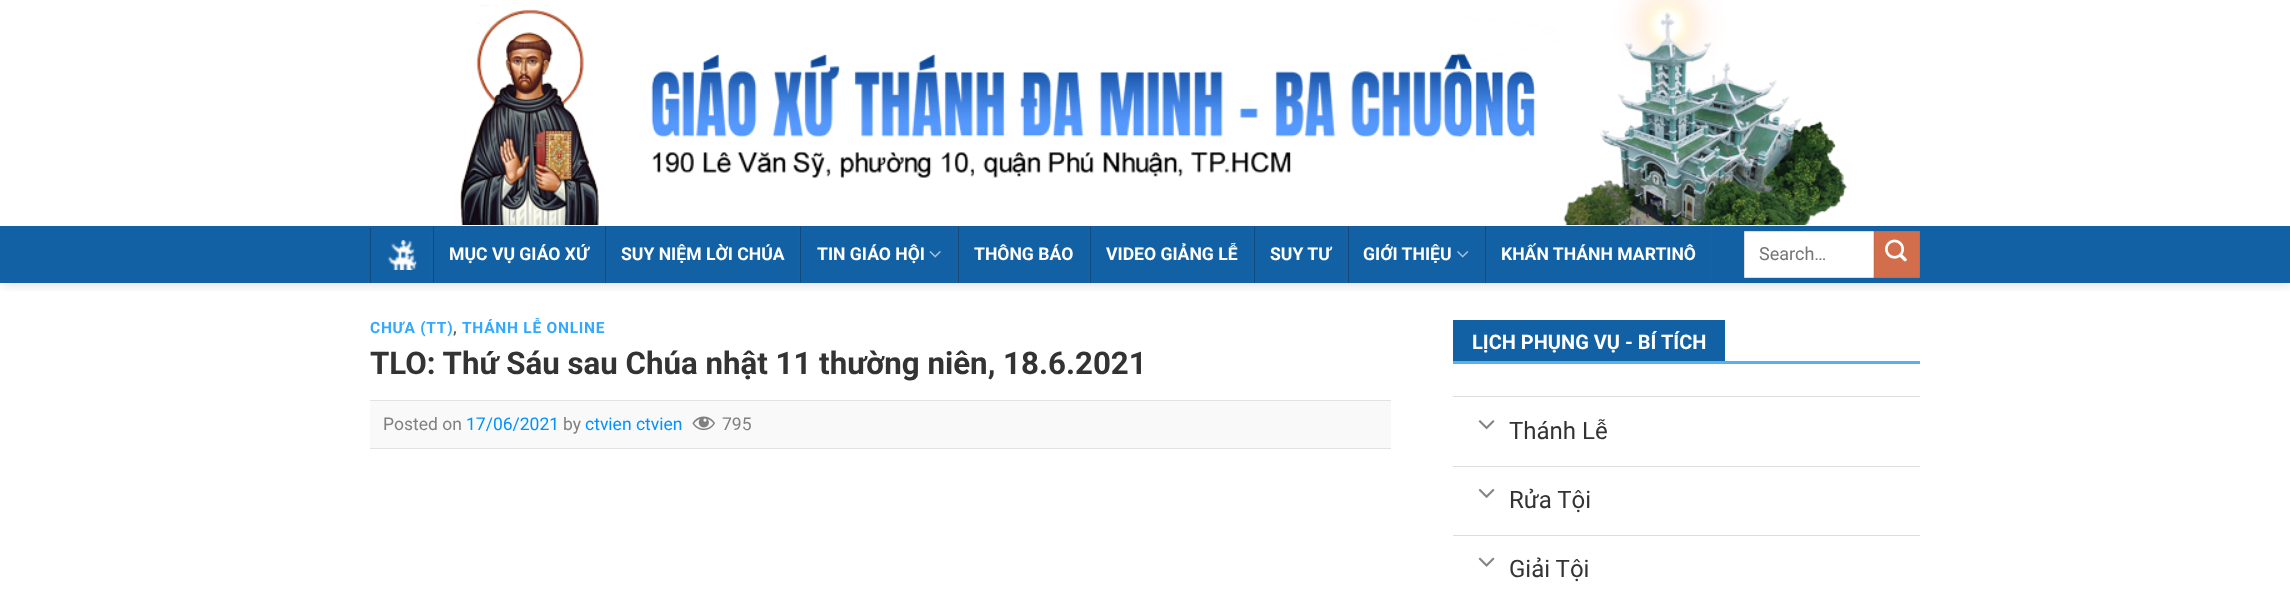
<!DOCTYPE html>
<meta charset="utf-8">
<style>body { margin: 0 } canvas { display: block }</style>
<canvas id="canvas" width="2290" height="595"></canvas>
<script type="module">
  const canvas = document.getElementById("canvas");
  const ctx = canvas.getContext("2d");
  ctx.miterLimit = 4;
  ctx.fontKerning = "normal";
  async function loadImage(src) {
    const img = new Image();
    img.src = src;
    await img.decode();
    return img;
  }

  ctx.fillStyle = "#ffffff";
  ctx.fillRect(0, 0, 2290, 595);
  ctx.save();
  ctx.beginPath();
  ctx.rect(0, 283, 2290, 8);
  ctx.clip();
  ctx.fillStyle = "rgba(0, 0, 0, 0.15)";
  ctx.filter = "blur(6px)";
  ctx.beginPath();
  ctx.rect(1, 1, 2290, 283);
  ctx.fill();
  ctx.filter = "none";
  ctx.restore();
  ctx.drawImage(await loadImage("img1.png"), 460, 0, 1389, 225);
  ctx.fillStyle = "#1361a5";
  ctx.fillRect(0, 226, 2290, 57);
  ctx.fillStyle = "#165c9a";
  ctx.fillRect(370, 226, 1550, 1);
  ctx.fillStyle = "#1d609e";
  ctx.fillRect(431, 228, 1, 55);
  ctx.fillStyle = "#114a7f";
  ctx.fillRect(370, 228, 1, 55);
  ctx.drawImage(await loadImage("img2.png"), 387, 240, 30, 30);
  ctx.fillStyle = "#1d609e";
  ctx.fillRect(604, 226, 1, 57);
  ctx.fillStyle = "#1f5c93";
  ctx.fillRect(604, 226, 1, 1);
  ctx.fillStyle = "#114a7f";
  ctx.fillRect(433, 226, 1, 57);
  ctx.fillStyle = "#144877";
  ctx.fillRect(433, 226, 1, 1);
  ctx.font = "bold 17.6px Roboto";
  ctx.fillStyle = "#ffffff";
  ctx.fillText("MỤC VỤ GIÁO XỨ", 449, 260);
  ctx.fillStyle = "#1d609e";
  ctx.fillRect(799, 226, 1, 57);
  ctx.fillStyle = "#1f5c93";
  ctx.fillRect(799, 226, 1, 1);
  ctx.fillStyle = "#114a7f";
  ctx.fillRect(605, 226, 1, 57);
  ctx.fillStyle = "#144877";
  ctx.fillRect(605, 226, 1, 1);
  ctx.fillStyle = "#ffffff";
  ctx.fillText("SUY NIỆM LỜI CHÚA", 621, 260);
  ctx.fillStyle = "#1d609e";
  ctx.fillRect(956, 226, 1, 57);
  ctx.fillStyle = "#1f5c93";
  ctx.fillRect(956, 226, 1, 1);
  ctx.fillStyle = "#114a7f";
  ctx.fillRect(800, 226, 1, 57);
  ctx.fillStyle = "#144877";
  ctx.fillRect(800, 226, 1, 1);
  ctx.fillStyle = "#ffffff";
  ctx.fillText("TIN GIÁO HỘI", 817, 260);
  ctx.drawImage(await loadImage("img3.png"), 929, 251, 12, 7);
  ctx.fillStyle = "#1d609e";
  ctx.fillRect(1089, 226, 1, 57);
  ctx.fillStyle = "#1f5c93";
  ctx.fillRect(1089, 226, 1, 1);
  ctx.fillStyle = "#114a7f";
  ctx.fillRect(958, 226, 1, 57);
  ctx.fillStyle = "#144877";
  ctx.fillRect(958, 226, 1, 1);
  ctx.fillStyle = "#ffffff";
  ctx.fillText("THÔNG BÁO", 974, 260);
  ctx.fillStyle = "#1d609e";
  ctx.fillRect(1253, 226, 1, 57);
  ctx.fillStyle = "#1f5c93";
  ctx.fillRect(1253, 226, 1, 1);
  ctx.fillStyle = "#114a7f";
  ctx.fillRect(1090, 226, 1, 57);
  ctx.fillStyle = "#144877";
  ctx.fillRect(1090, 226, 1, 1);
  ctx.fillStyle = "#ffffff";
  ctx.fillText("VIDEO GIẢNG LỄ", 1106, 260);
  ctx.fillStyle = "#1d609e";
  ctx.fillRect(1346, 226, 1, 57);
  ctx.fillStyle = "#1f5c93";
  ctx.fillRect(1346, 226, 1, 1);
  ctx.fillStyle = "#114a7f";
  ctx.fillRect(1254, 226, 1, 57);
  ctx.fillStyle = "#144877";
  ctx.fillRect(1254, 226, 1, 1);
  ctx.fillStyle = "#ffffff";
  ctx.fillText("SUY TƯ", 1270, 260);
  ctx.fillStyle = "#1d609e";
  ctx.fillRect(1484, 226, 1, 57);
  ctx.fillStyle = "#1f5c93";
  ctx.fillRect(1484, 226, 1, 1);
  ctx.fillStyle = "#114a7f";
  ctx.fillRect(1348, 226, 1, 57);
  ctx.fillStyle = "#144877";
  ctx.fillRect(1348, 226, 1, 1);
  ctx.fillStyle = "#ffffff";
  ctx.fillText("GIỚI THIỆU", 1363, 260);
  ctx.drawImage(await loadImage("img4.png"), 1457, 251, 12, 7);
  ctx.fillStyle = "#1d609e";
  ctx.fillRect(1711, 226, 1, 57);
  ctx.fillStyle = "#1f5c93";
  ctx.fillRect(1711, 226, 1, 1);
  ctx.fillStyle = "#114a7f";
  ctx.fillRect(1485, 226, 1, 57);
  ctx.fillStyle = "#144877";
  ctx.fillRect(1485, 226, 1, 1);
  ctx.fillStyle = "#ffffff";
  ctx.fillText("KHẤN THÁNH MARTINÔ", 1501, 260);
  ctx.beginPath();
  ctx.rect(1744.5, 231.5, 129, 46);
  ctx.fill();
  ctx.strokeStyle = "#dddddd";
  ctx.stroke();
  ctx.font = "18px Roboto";
  ctx.fillStyle = "#757575";
  ctx.fillText("Search…", 1759, 260);
  ctx.fillStyle = "#d26e4b";
  ctx.beginPath();
  ctx.rect(1874.5, 231.5, 45, 46);
  ctx.fill();
  ctx.strokeStyle = "#c86947";
  ctx.stroke();
  ctx.drawImage(await loadImage("img5.png"), 1885, 239, 22, 23);
  ctx.letterSpacing = "0.75px";
  ctx.font = "bold 15.5px Roboto";
  ctx.fillStyle = "#33a8ff";
  ctx.fillText("CHƯA (TT)", 370, 333);
  ctx.fillStyle = "#5c5c5c";
  ctx.fillText(",", 453, 333);
  ctx.fillStyle = "#33a8ff";
  ctx.fillText("THÁNH LỄ ONLINE", 462, 333);
  ctx.letterSpacing = "0px";
  ctx.font = "bold 31.25px Roboto";
  ctx.fillStyle = "#333333";
  ctx.fillText("TLO: Thứ Sáu sau Chúa nhật 11 thường niên, 18.6.2021", 370, 374);
  ctx.fillStyle = "#f9f9f9";
  ctx.fillRect(370, 401, 1021, 47);
  ctx.fillStyle = "#e2e2e2";
  ctx.fillRect(370, 400, 1021, 1);
  ctx.fillRect(370, 448, 1021, 1);
  ctx.font = "17.5px Roboto";
  ctx.fillStyle = "#808080";
  ctx.fillText("Posted on", 383, 430);
  ctx.fillStyle = "#0092ff";
  ctx.fillText("17/06/2021", 466, 430);
  ctx.fillStyle = "#808080";
  ctx.fillText("by", 563, 430);
  ctx.fillStyle = "#0092ff";
  ctx.fillText("ctvien ctvien", 585, 430);
  ctx.drawImage(await loadImage("img6.png"), 692, 416, 23, 15);
  ctx.fillStyle = "#808080";
  ctx.fillText("795", 722, 430);
  ctx.fillStyle = "#57b2e9";
  ctx.fillRect(1453, 361, 467, 3);
  ctx.fillStyle = "#1261a5";
  ctx.fillRect(1453, 320, 272, 41);
  ctx.font = "bold 20px Roboto";
  ctx.fillStyle = "#ffffff";
  ctx.fillText("LỊCH PHỤNG VỤ - BÍ TÍCH", 1472, 349);
  ctx.fillStyle = "#dddddd";
  ctx.fillRect(1453, 396, 467, 1);
  ctx.drawImage(await loadImage("img7.png"), 1478, 420, 17, 10);
  ctx.font = "24px Roboto";
  ctx.fillStyle = "#333333";
  ctx.fillText("Thánh Lễ", 1509, 439);
  ctx.fillStyle = "#dddddd";
  ctx.fillRect(1453, 466, 467, 1);
  ctx.drawImage(await loadImage("img8.png"), 1478, 489, 17, 9);
  ctx.fillStyle = "#333333";
  ctx.fillText("Rửa Tội", 1509, 508);
  ctx.fillStyle = "#dddddd";
  ctx.fillRect(1453, 535, 467, 1);
  ctx.drawImage(await loadImage("img9.png"), 1478, 557, 17, 10);
  ctx.fillStyle = "#333333";
  ctx.fillText("Giải Tội", 1509, 577);
</script>
